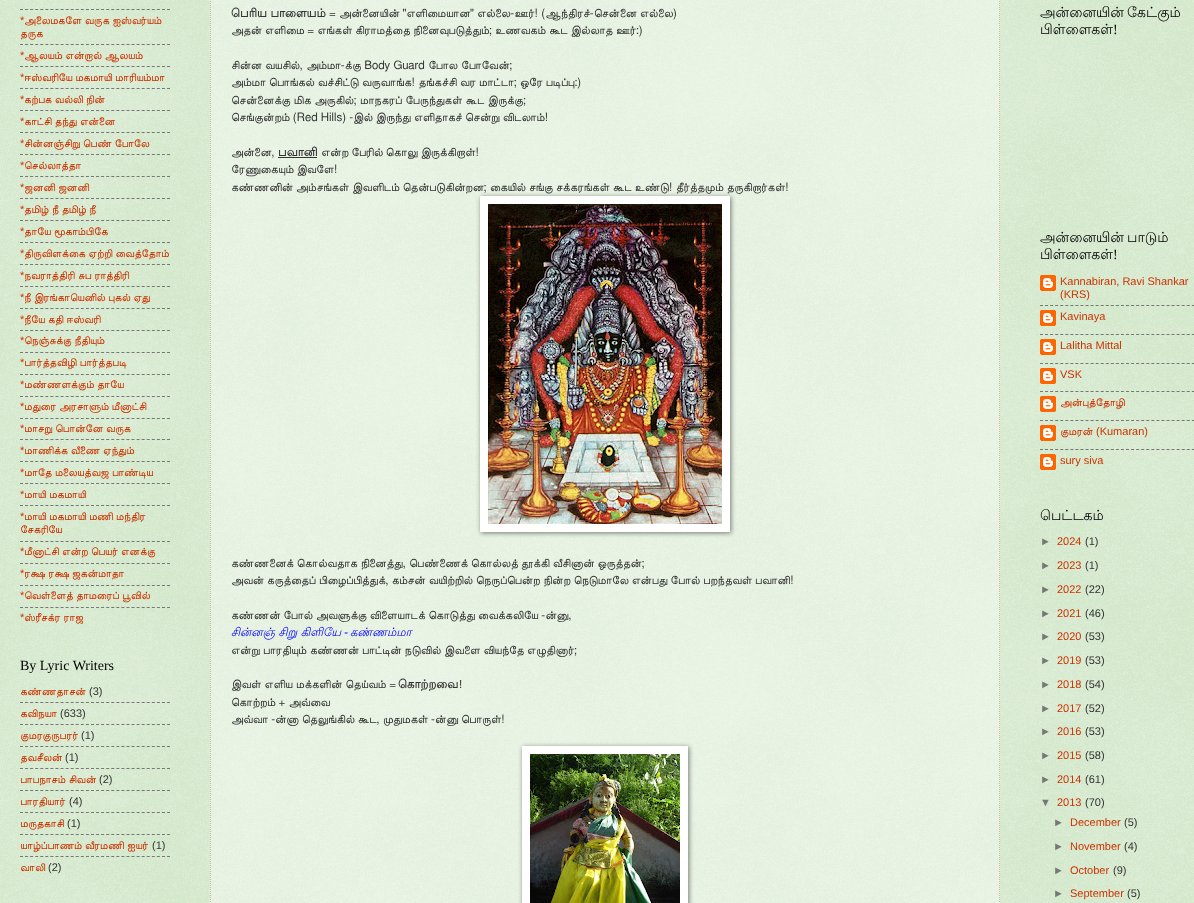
<!DOCTYPE html>
<meta charset="utf-8">
<style>body { margin: 0 } canvas { display: block }</style>
<canvas id="canvas" width="1194" height="903"></canvas>
<script type="module">
  const canvas = document.getElementById("canvas");
  const ctx = canvas.getContext("2d");
  ctx.miterLimit = 4;
  ctx.fontKerning = "normal";
  async function loadImage(src) {
    const img = new Image();
    img.src = src;
    await img.decode();
    return img;
  }

  ctx.fillStyle = "#b6d7a8";
  ctx.fillRect(0, 0, 1194, 903);
  ctx.drawImage(await loadImage("img1.png"), 0, 0, 1194, 903);
  ctx.beginPath();
  ctx.moveTo(20, 9.5);
  ctx.lineTo(170, 9.5);
  ctx.strokeStyle = "#777777";
  ctx.setLineDash([3, 2.07]);
  ctx.stroke();
  ctx.font = "11px Liberation Sans";
  ctx.fillStyle = "#cc3300";
  ctx.fillText("*", 20, 24);
  ctx.wordSpacing = "0.25px";
  ctx.font = "11px FreeSans";
  ctx.fillText("அலைமகளே வருக ஐஸ்வர்யம்", 24, 24);
  ctx.wordSpacing = "0px";
  ctx.fillText("தருக", 20, 37);
  ctx.beginPath();
  ctx.moveTo(20, 44.5);
  ctx.lineTo(170, 44.5);
  ctx.stroke();
  ctx.font = "11px Liberation Sans";
  ctx.fillText("*", 20, 59);
  ctx.wordSpacing = "0.25px";
  ctx.font = "11px FreeSans";
  ctx.fillText("ஆலயம் என்றால் ஆலயம்", 24, 59);
  ctx.beginPath();
  ctx.moveTo(20, 66.5);
  ctx.lineTo(170, 66.5);
  ctx.stroke();
  ctx.wordSpacing = "0px";
  ctx.font = "11px Liberation Sans";
  ctx.fillText("*", 20, 81);
  ctx.wordSpacing = "0.25px";
  ctx.font = "11px FreeSans";
  ctx.fillText("ஈஸ்வரியே மகமாயி மாரியம்மா", 24, 81);
  ctx.beginPath();
  ctx.moveTo(20, 88.5);
  ctx.lineTo(170, 88.5);
  ctx.stroke();
  ctx.wordSpacing = "0px";
  ctx.font = "11px Liberation Sans";
  ctx.fillText("*", 20, 103);
  ctx.wordSpacing = "0.25px";
  ctx.font = "11px FreeSans";
  ctx.fillText("கற்பக வல்லி நின்", 24, 103);
  ctx.beginPath();
  ctx.moveTo(20, 110.5);
  ctx.lineTo(170, 110.5);
  ctx.stroke();
  ctx.wordSpacing = "0px";
  ctx.font = "11px Liberation Sans";
  ctx.fillText("*", 20, 125);
  ctx.wordSpacing = "0.25px";
  ctx.font = "11px FreeSans";
  ctx.fillText("காட்சி தந்து என்னை", 24, 125);
  ctx.beginPath();
  ctx.moveTo(20, 132.5);
  ctx.lineTo(170, 132.5);
  ctx.stroke();
  ctx.wordSpacing = "0px";
  ctx.font = "11px Liberation Sans";
  ctx.fillText("*", 20, 147);
  ctx.wordSpacing = "0.25px";
  ctx.font = "11px FreeSans";
  ctx.fillText("சின்னஞ்சிறு பெண் போலே", 24, 147);
  ctx.beginPath();
  ctx.moveTo(20, 154.5);
  ctx.lineTo(170, 154.5);
  ctx.stroke();
  ctx.wordSpacing = "0px";
  ctx.font = "11px Liberation Sans";
  ctx.fillText("*", 20, 169);
  ctx.font = "11px FreeSans";
  ctx.fillText("செல்லாத்தா", 24, 169);
  ctx.beginPath();
  ctx.moveTo(20, 176.5);
  ctx.lineTo(170, 176.5);
  ctx.stroke();
  ctx.font = "11px Liberation Sans";
  ctx.fillText("*", 20, 191);
  ctx.wordSpacing = "0.25px";
  ctx.font = "11px FreeSans";
  ctx.fillText("ஜனனி ஜனனி", 24, 191);
  ctx.beginPath();
  ctx.moveTo(20, 198.5);
  ctx.lineTo(170, 198.5);
  ctx.stroke();
  ctx.wordSpacing = "0px";
  ctx.font = "11px Liberation Sans";
  ctx.fillText("*", 20, 213);
  ctx.wordSpacing = "0.25px";
  ctx.font = "11px FreeSans";
  ctx.fillText("தமிழ் நீ தமிழ் நீ", 24, 213);
  ctx.beginPath();
  ctx.moveTo(20, 220.5);
  ctx.lineTo(170, 220.5);
  ctx.stroke();
  ctx.wordSpacing = "0px";
  ctx.font = "11px Liberation Sans";
  ctx.fillText("*", 20, 235);
  ctx.wordSpacing = "0.25px";
  ctx.font = "11px FreeSans";
  ctx.fillText("தாயே மூகாம்பிகே", 24, 235);
  ctx.beginPath();
  ctx.moveTo(20, 242.5);
  ctx.lineTo(170, 242.5);
  ctx.stroke();
  ctx.wordSpacing = "0px";
  ctx.font = "11px Liberation Sans";
  ctx.fillText("*", 20, 257);
  ctx.wordSpacing = "0.25px";
  ctx.font = "11px FreeSans";
  ctx.fillText("திருவிளக்கை ஏற்றி வைத்தோம்", 24, 257);
  ctx.beginPath();
  ctx.moveTo(20, 264.5);
  ctx.lineTo(170, 264.5);
  ctx.stroke();
  ctx.wordSpacing = "0px";
  ctx.font = "11px Liberation Sans";
  ctx.fillText("*", 20, 279);
  ctx.wordSpacing = "0.25px";
  ctx.font = "11px FreeSans";
  ctx.fillText("நவராத்திரி சுப ராத்திரி", 24, 279);
  ctx.beginPath();
  ctx.moveTo(20, 286.5);
  ctx.lineTo(170, 286.5);
  ctx.stroke();
  ctx.wordSpacing = "0px";
  ctx.font = "11px Liberation Sans";
  ctx.fillText("*", 20, 301);
  ctx.wordSpacing = "0.25px";
  ctx.font = "11px FreeSans";
  ctx.fillText("நீ இரங்காயெனில் புகல் ஏது", 24, 301);
  ctx.beginPath();
  ctx.moveTo(20, 308.5);
  ctx.lineTo(170, 308.5);
  ctx.stroke();
  ctx.wordSpacing = "0px";
  ctx.font = "11px Liberation Sans";
  ctx.fillText("*", 20, 323);
  ctx.wordSpacing = "0.25px";
  ctx.font = "11px FreeSans";
  ctx.fillText("நீயே கதி ஈஸ்வரி", 24, 323);
  ctx.beginPath();
  ctx.moveTo(20, 330.5);
  ctx.lineTo(170, 330.5);
  ctx.stroke();
  ctx.wordSpacing = "0px";
  ctx.font = "11px Liberation Sans";
  ctx.fillText("*", 20, 344);
  ctx.wordSpacing = "0.25px";
  ctx.font = "11px FreeSans";
  ctx.fillText("நெஞ்சுக்கு நீதியும்", 24, 344);
  ctx.beginPath();
  ctx.moveTo(20, 352.5);
  ctx.lineTo(170, 352.5);
  ctx.stroke();
  ctx.wordSpacing = "0px";
  ctx.font = "11px Liberation Sans";
  ctx.fillText("*", 20, 366);
  ctx.wordSpacing = "0.25px";
  ctx.font = "11px FreeSans";
  ctx.fillText("பார்த்தவிழி பார்த்தபடி", 24, 366);
  ctx.beginPath();
  ctx.moveTo(20, 374.5);
  ctx.lineTo(170, 374.5);
  ctx.stroke();
  ctx.wordSpacing = "0px";
  ctx.font = "11px Liberation Sans";
  ctx.fillText("*", 20, 388);
  ctx.wordSpacing = "0.25px";
  ctx.font = "11px FreeSans";
  ctx.fillText("மண்ணளக்கும் தாயே", 24, 388);
  ctx.beginPath();
  ctx.moveTo(20, 396.5);
  ctx.lineTo(170, 396.5);
  ctx.stroke();
  ctx.wordSpacing = "0px";
  ctx.font = "11px Liberation Sans";
  ctx.fillText("*", 20, 410);
  ctx.wordSpacing = "0.25px";
  ctx.font = "11px FreeSans";
  ctx.fillText("மதுரை அரசாளும் மீனாட்சி", 24, 410);
  ctx.beginPath();
  ctx.moveTo(20, 418.5);
  ctx.lineTo(170, 418.5);
  ctx.stroke();
  ctx.wordSpacing = "0px";
  ctx.font = "11px Liberation Sans";
  ctx.fillText("*", 20, 432);
  ctx.wordSpacing = "0.25px";
  ctx.font = "11px FreeSans";
  ctx.fillText("மாசறு பொன்னே வருக", 24, 432);
  ctx.beginPath();
  ctx.moveTo(20, 439.5);
  ctx.lineTo(170, 439.5);
  ctx.stroke();
  ctx.wordSpacing = "0px";
  ctx.font = "11px Liberation Sans";
  ctx.fillText("*", 20, 454);
  ctx.wordSpacing = "0.25px";
  ctx.font = "11px FreeSans";
  ctx.fillText("மாணிக்க வீணை ஏந்தும்", 24, 454);
  ctx.beginPath();
  ctx.moveTo(20, 461.5);
  ctx.lineTo(170, 461.5);
  ctx.stroke();
  ctx.wordSpacing = "0px";
  ctx.font = "11px Liberation Sans";
  ctx.fillText("*", 20, 476);
  ctx.wordSpacing = "0.25px";
  ctx.font = "11px FreeSans";
  ctx.fillText("மாதே மலையத்வஜ பாண்டிய", 24, 476);
  ctx.beginPath();
  ctx.moveTo(20, 483.5);
  ctx.lineTo(170, 483.5);
  ctx.stroke();
  ctx.wordSpacing = "0px";
  ctx.font = "11px Liberation Sans";
  ctx.fillText("*", 20, 498);
  ctx.wordSpacing = "0.25px";
  ctx.font = "11px FreeSans";
  ctx.fillText("மாயி மகமாயி", 24, 498);
  ctx.beginPath();
  ctx.moveTo(20, 505.5);
  ctx.lineTo(170, 505.5);
  ctx.stroke();
  ctx.wordSpacing = "0px";
  ctx.font = "11px Liberation Sans";
  ctx.fillText("*", 20, 520);
  ctx.wordSpacing = "0.25px";
  ctx.font = "11px FreeSans";
  ctx.fillText("மாயி மகமாயி மணி மந்திர", 24, 520);
  ctx.wordSpacing = "0px";
  ctx.fillText("சேகரியே", 20, 533);
  ctx.beginPath();
  ctx.moveTo(20, 541.5);
  ctx.lineTo(170, 541.5);
  ctx.stroke();
  ctx.font = "11px Liberation Sans";
  ctx.fillText("*", 20, 555);
  ctx.wordSpacing = "0.25px";
  ctx.font = "11px FreeSans";
  ctx.fillText("மீனாட்சி என்ற பெயர் எனக்கு", 24, 555);
  ctx.beginPath();
  ctx.moveTo(20, 563.5);
  ctx.lineTo(170, 563.5);
  ctx.stroke();
  ctx.wordSpacing = "0px";
  ctx.font = "11px Liberation Sans";
  ctx.fillText("*", 20, 577);
  ctx.wordSpacing = "0.25px";
  ctx.font = "11px FreeSans";
  ctx.fillText("ரக்ஷ ரக்ஷ ஜகன்மாதா", 24, 577);
  ctx.beginPath();
  ctx.moveTo(20, 585.5);
  ctx.lineTo(170, 585.5);
  ctx.stroke();
  ctx.wordSpacing = "0px";
  ctx.font = "11px Liberation Sans";
  ctx.fillText("*", 20, 599);
  ctx.wordSpacing = "0.25px";
  ctx.font = "11px FreeSans";
  ctx.fillText("வெள்ளைத் தாமரைப் பூவில்", 24, 599);
  ctx.beginPath();
  ctx.moveTo(20, 607.5);
  ctx.lineTo(170, 607.5);
  ctx.stroke();
  ctx.wordSpacing = "0px";
  ctx.font = "11px Liberation Sans";
  ctx.fillText("*", 20, 621);
  ctx.wordSpacing = "0.25px";
  ctx.font = "11px FreeSans";
  ctx.fillText("ஸ்ரீசக்ர ராஜ", 24, 621);
  ctx.wordSpacing = "0px";
  ctx.font = "14px Liberation Serif";
  ctx.fillStyle = "#000000";
  ctx.fillText("By Lyric Writers", 20, 670);
  ctx.font = "11px FreeSans";
  ctx.fillStyle = "#cc3300";
  ctx.fillText("கண்ணதாசன்", 20, 695);
  ctx.font = "11px Liberation Sans";
  ctx.fillStyle = "#333333";
  ctx.fillText("(3)", 89, 695);
  ctx.beginPath();
  ctx.moveTo(20, 702.5);
  ctx.lineTo(170, 702.5);
  ctx.stroke();
  ctx.font = "11px FreeSans";
  ctx.fillStyle = "#cc3300";
  ctx.fillText("கவிநயா", 20, 717);
  ctx.font = "11px Liberation Sans";
  ctx.fillStyle = "#333333";
  ctx.fillText("(633)", 60, 717);
  ctx.beginPath();
  ctx.moveTo(20, 724.5);
  ctx.lineTo(170, 724.5);
  ctx.stroke();
  ctx.font = "11px FreeSans";
  ctx.fillStyle = "#cc3300";
  ctx.fillText("குமரகுருபரர்", 20, 739);
  ctx.font = "11px Liberation Sans";
  ctx.fillStyle = "#333333";
  ctx.fillText("(1)", 81, 739);
  ctx.beginPath();
  ctx.moveTo(20, 746.5);
  ctx.lineTo(170, 746.5);
  ctx.stroke();
  ctx.font = "11px FreeSans";
  ctx.fillStyle = "#cc3300";
  ctx.fillText("தவசீலன்", 20, 761);
  ctx.font = "11px Liberation Sans";
  ctx.fillStyle = "#333333";
  ctx.fillText("(1)", 65, 761);
  ctx.beginPath();
  ctx.moveTo(20, 768.5);
  ctx.lineTo(170, 768.5);
  ctx.stroke();
  ctx.wordSpacing = "0.25px";
  ctx.font = "11px FreeSans";
  ctx.fillStyle = "#cc3300";
  ctx.fillText("பாபநாசம் சிவன்", 20, 783);
  ctx.wordSpacing = "0px";
  ctx.font = "11px Liberation Sans";
  ctx.fillStyle = "#333333";
  ctx.fillText("(2)", 99, 783);
  ctx.beginPath();
  ctx.moveTo(20, 790.5);
  ctx.lineTo(170, 790.5);
  ctx.stroke();
  ctx.font = "11px FreeSans";
  ctx.fillStyle = "#cc3300";
  ctx.fillText("பாரதியார்", 20, 805);
  ctx.font = "11px Liberation Sans";
  ctx.fillStyle = "#333333";
  ctx.fillText("(4)", 69, 805);
  ctx.beginPath();
  ctx.moveTo(20, 812.5);
  ctx.lineTo(170, 812.5);
  ctx.stroke();
  ctx.font = "11px FreeSans";
  ctx.fillStyle = "#cc3300";
  ctx.fillText("மருதகாசி", 20, 827);
  ctx.font = "11px Liberation Sans";
  ctx.fillStyle = "#333333";
  ctx.fillText("(1)", 67, 827);
  ctx.beginPath();
  ctx.moveTo(20, 834.5);
  ctx.lineTo(170, 834.5);
  ctx.stroke();
  ctx.wordSpacing = "0.25px";
  ctx.font = "11px FreeSans";
  ctx.fillStyle = "#cc3300";
  ctx.fillText("யாழ்ப்பாணம் வீரமணி ஐயர்", 20, 849);
  ctx.wordSpacing = "0px";
  ctx.font = "11px Liberation Sans";
  ctx.fillStyle = "#333333";
  ctx.fillText("(1)", 152, 849);
  ctx.beginPath();
  ctx.moveTo(20, 856.5);
  ctx.lineTo(170, 856.5);
  ctx.stroke();
  ctx.font = "11px FreeSans";
  ctx.fillStyle = "#cc3300";
  ctx.fillText("வாலி", 20, 871);
  ctx.font = "11px Liberation Sans";
  ctx.fillStyle = "#333333";
  ctx.fillText("(2)", 48, 871);
  ctx.fillStyle = "rgba(255, 255, 255, 0.4)";
  ctx.fillRect(210, 0, 790, 903);
  ctx.beginPath();
  ctx.moveTo(999.5, -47);
  ctx.lineTo(999.5, 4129);
  ctx.strokeStyle = "#ccbb99";
  ctx.setLineDash([1, 1]);
  ctx.stroke();
  ctx.beginPath();
  ctx.moveTo(210.5, -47);
  ctx.lineTo(210.5, 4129);
  ctx.stroke();
  ctx.font = "bold 11.6px Lohit Tamil";
  ctx.fillStyle = "#333333";
  ctx.fillText("பெரிய பாளையம்", 231, 17);
  ctx.wordSpacing = "0.25px";
  ctx.font = "11.6px FreeSans";
  ctx.fillText("= அன்னையின் \"எளிமையான\" எல்லை-ஊர்! (ஆந்திரச்-சென்னை எல்லை)", 329, 17);
  ctx.fillText("அதன் எளிமை = எங்கள் கிராமத்தை நினைவுபடுத்தும்; உணவகம் கூட இல்லாத ஊர்:)", 231, 34);
  ctx.wordSpacing = "0.5px";
  ctx.fillText("சின்ன வயசில், அம்மா-க்கு Body Guard போல போவேன்;", 231, 69);
  ctx.wordSpacing = "0.25px";
  ctx.fillText("அம்மா பொங்கல் வச்சிட்டு வருவாங்க! தங்கச்சி வர மாட்டா; ஒரே படிப்பு:)", 231, 86);
  ctx.wordSpacing = "0.5px";
  ctx.fillText("சென்னைக்கு மிக அருகில்; மாநகரப் பேருந்துகள் கூட இருக்கு;", 231, 104);
  ctx.wordSpacing = "0.25px";
  ctx.fillText("செங்குன்றம் (Red Hills) -இல் இருந்து எளிதாகச் சென்று விடலாம்!", 231, 121);
  ctx.wordSpacing = "0px";
  ctx.fillText("அன்னை,", 231, 156);
  ctx.font = "bold 11.6px Lohit Tamil";
  ctx.fillText("பவானி", 278, 156);
  ctx.fillRect(278, 157, 39, 1);
  ctx.font = "11.6px FreeSans";
  ctx.fillText("என்ற பேரில் கொலு இருக்கிறாள்!", 321, 156);
  ctx.fillText("ரேணுகையும் இவளே!", 231, 173);
  ctx.wordSpacing = "0.25px";
  ctx.fillText("கண்ணனின் அம்சங்கள் இவளிடம் தென்படுகின்றன; கையில் சங்கு சக்கரங்கள் கூட உண்டு! தீர்த்தமும் தருகிறார்கள்!", 231, 191);
  ctx.fillStyle = "rgba(0, 0, 0, 0.5)";
  ctx.filter = "blur(2.5px)";
  ctx.beginPath();
  ctx.rect(481, 197, 250, 336);
  ctx.fill();
  ctx.filter = "none";
  ctx.fillStyle = "#ffffff";
  ctx.fillRect(480, 196, 250, 336);
  ctx.drawImage(await loadImage("img2.png"), 488, 204, 234, 320);
  ctx.fillStyle = "#333333";
  ctx.fillText("கண்ணனைக் கொல்வதாக நினைத்து, பெண்ணைக் கொல்லத் தூக்கி வீசினான் ஒருத்தன்;", 231, 567);
  ctx.fillText("அவன் கருத்தைப் பிழைப்பித்துக், கம்சன் வயிற்றில் நெருப்பென்ற நின்ற நெடுமாலே என்பது போல் பறந்தவள் பவானி!", 231, 584);
  ctx.fillText("கண்ணன் போல் அவளுக்கு விளையாடக் கொடுத்து வைக்கலியே -ன்னு,", 231, 619);
  ctx.wordSpacing = "0px";
  ctx.font = "italic 11.6px Lohit Tamil";
  ctx.fillStyle = "#0000ff";
  ctx.fillText("சின்னஞ் சிறு கிளியே", 231, 636);
  ctx.font = "italic 11.6px Liberation Sans";
  ctx.fillText("-", 344, 636);
  ctx.font = "italic 11.6px Lohit Tamil";
  ctx.fillText("கண்ணம்மா", 350, 636);
  ctx.wordSpacing = "0.25px";
  ctx.font = "11.6px FreeSans";
  ctx.fillStyle = "#333333";
  ctx.fillText("என்று பாரதியும் கண்ணன் பாட்டின் நடுவில் இவளை வியந்தே எழுதினார்;", 231, 654);
  ctx.wordSpacing = "0.5px";
  ctx.fillText("இவள் எளிய மக்களின் தெய்வம் =", 231, 688);
  ctx.wordSpacing = "0px";
  ctx.font = "bold 11.6px Lohit Tamil";
  ctx.fillText("கொற்றவை", 398, 688);
  ctx.font = "11.6px Liberation Sans";
  ctx.fillText("!", 459, 688);
  ctx.wordSpacing = "0.25px";
  ctx.font = "11.6px FreeSans";
  ctx.fillText("கொற்றம் + அவ்வை", 231, 706);
  ctx.fillText("அவ்வா -ன்னா தெலுங்கில் கூட, முதுமகள் -ன்னு பொருள்!", 231, 723);
  ctx.fillStyle = "rgba(0, 0, 0, 0.5)";
  ctx.filter = "blur(2.5px)";
  ctx.beginPath();
  ctx.rect(523, 747, 166, 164);
  ctx.fill();
  ctx.filter = "none";
  ctx.fillStyle = "#ffffff";
  ctx.fillRect(522, 746, 166, 157);
  ctx.drawImage(await loadImage("img3.png"), 530, 754, 150, 149);
  ctx.wordSpacing = "-1px";
  ctx.font = "14px Lohit Tamil";
  ctx.fillStyle = "#000000";
  ctx.fillText("அன்னையின் கேட்கும்", 1040, 17);
  ctx.wordSpacing = "0px";
  ctx.fillText("பிள்ளைகள்", 1040, 34);
  ctx.font = "14px Liberation Serif";
  ctx.fillText("!", 1113, 34);
  ctx.wordSpacing = "-1px";
  ctx.font = "14px Lohit Tamil";
  ctx.fillText("அன்னையின் பாடும்", 1040, 242);
  ctx.wordSpacing = "0px";
  ctx.fillText("பிள்ளைகள்", 1040, 259);
  ctx.font = "14px Liberation Serif";
  ctx.fillText("!", 1113, 259);
  ctx.drawImage(await loadImage("img4.png"), 1040, 275, 16, 16);
  ctx.font = "11px Liberation Sans";
  ctx.fillStyle = "#cc3300";
  ctx.fillText("Kannabiran, Ravi Shankar", 1060, 285);
  ctx.fillText("(KRS)", 1060, 298);
  ctx.beginPath();
  ctx.moveTo(1040, 305.5);
  ctx.lineTo(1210, 305.5);
  ctx.strokeStyle = "#777777";
  ctx.setLineDash([3, 2.06]);
  ctx.stroke();
  ctx.drawImage(await loadImage("img5.png"), 1040, 310, 16, 16);
  ctx.fillText("Kavinaya", 1060, 320);
  ctx.beginPath();
  ctx.moveTo(1040, 334.5);
  ctx.lineTo(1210, 334.5);
  ctx.stroke();
  ctx.drawImage(await loadImage("img6.png"), 1040, 339, 16, 16);
  ctx.fillText("Lalitha Mittal", 1060, 349);
  ctx.beginPath();
  ctx.moveTo(1040, 363.5);
  ctx.lineTo(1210, 363.5);
  ctx.stroke();
  ctx.drawImage(await loadImage("img7.png"), 1040, 368, 16, 16);
  ctx.fillText("VSK", 1060, 378);
  ctx.beginPath();
  ctx.moveTo(1040, 391.5);
  ctx.lineTo(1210, 391.5);
  ctx.stroke();
  ctx.drawImage(await loadImage("img8.png"), 1040, 396, 16, 16);
  ctx.font = "11px FreeSans";
  ctx.fillText("அன்புத்தோழி", 1060, 406);
  ctx.beginPath();
  ctx.moveTo(1040, 420.5);
  ctx.lineTo(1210, 420.5);
  ctx.stroke();
  ctx.drawImage(await loadImage("img4.png"), 1040, 425, 16, 16);
  ctx.fillText("குமரன்", 1060, 435);
  ctx.font = "11px Liberation Sans";
  ctx.fillText("(Kumaran)", 1096, 435);
  ctx.beginPath();
  ctx.moveTo(1040, 449.5);
  ctx.lineTo(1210, 449.5);
  ctx.stroke();
  ctx.drawImage(await loadImage("img9.png"), 1040, 454, 16, 16);
  ctx.fillText("sury siva", 1060, 464);
  ctx.font = "14px Lohit Tamil";
  ctx.fillStyle = "#000000";
  ctx.fillText("பெட்டகம்", 1040, 520);
  ctx.font = "11px Liberation Sans";
  ctx.fillStyle = "#777777";
  ctx.fillText("►", 1040, 545);
  ctx.fillStyle = "#cc3300";
  ctx.fillText("2024", 1057, 545);
  ctx.fillStyle = "#333333";
  ctx.fillText("(1)", 1085, 545);
  ctx.fillStyle = "#777777";
  ctx.fillText("►", 1040, 569);
  ctx.fillStyle = "#cc3300";
  ctx.fillText("2023", 1057, 569);
  ctx.fillStyle = "#333333";
  ctx.fillText("(1)", 1085, 569);
  ctx.fillStyle = "#777777";
  ctx.fillText("►", 1040, 593);
  ctx.fillStyle = "#cc3300";
  ctx.fillText("2022", 1057, 593);
  ctx.fillStyle = "#333333";
  ctx.fillText("(22)", 1085, 593);
  ctx.fillStyle = "#777777";
  ctx.fillText("►", 1040, 617);
  ctx.fillStyle = "#cc3300";
  ctx.fillText("2021", 1057, 617);
  ctx.fillStyle = "#333333";
  ctx.fillText("(46)", 1085, 617);
  ctx.fillStyle = "#777777";
  ctx.fillText("►", 1040, 640);
  ctx.fillStyle = "#cc3300";
  ctx.fillText("2020", 1057, 640);
  ctx.fillStyle = "#333333";
  ctx.fillText("(53)", 1085, 640);
  ctx.fillStyle = "#777777";
  ctx.fillText("►", 1040, 664);
  ctx.fillStyle = "#cc3300";
  ctx.fillText("2019", 1057, 664);
  ctx.fillStyle = "#333333";
  ctx.fillText("(53)", 1085, 664);
  ctx.fillStyle = "#777777";
  ctx.fillText("►", 1040, 688);
  ctx.fillStyle = "#cc3300";
  ctx.fillText("2018", 1057, 688);
  ctx.fillStyle = "#333333";
  ctx.fillText("(54)", 1085, 688);
  ctx.fillStyle = "#777777";
  ctx.fillText("►", 1040, 712);
  ctx.fillStyle = "#cc3300";
  ctx.fillText("2017", 1057, 712);
  ctx.fillStyle = "#333333";
  ctx.fillText("(52)", 1085, 712);
  ctx.fillStyle = "#777777";
  ctx.fillText("►", 1040, 735);
  ctx.fillStyle = "#cc3300";
  ctx.fillText("2016", 1057, 735);
  ctx.fillStyle = "#333333";
  ctx.fillText("(53)", 1085, 735);
  ctx.fillStyle = "#777777";
  ctx.fillText("►", 1040, 759);
  ctx.fillStyle = "#cc3300";
  ctx.fillText("2015", 1057, 759);
  ctx.fillStyle = "#333333";
  ctx.fillText("(58)", 1085, 759);
  ctx.fillStyle = "#777777";
  ctx.fillText("►", 1040, 783);
  ctx.fillStyle = "#cc3300";
  ctx.fillText("2014", 1057, 783);
  ctx.fillStyle = "#333333";
  ctx.fillText("(61)", 1085, 783);
  ctx.fillStyle = "#777777";
  ctx.fillText("▼", 1040, 806);
  ctx.fillStyle = "#cc3300";
  ctx.fillText("2013", 1057, 806);
  ctx.fillStyle = "#333333";
  ctx.fillText("(70)", 1085, 806);
  ctx.fillStyle = "#777777";
  ctx.fillText("►", 1053, 826);
  ctx.fillStyle = "#cc3300";
  ctx.fillText("December", 1070, 826);
  ctx.fillStyle = "#333333";
  ctx.fillText("(5)", 1124, 826);
  ctx.fillStyle = "#777777";
  ctx.fillText("►", 1053, 850);
  ctx.fillStyle = "#cc3300";
  ctx.fillText("November", 1070, 850);
  ctx.fillStyle = "#333333";
  ctx.fillText("(4)", 1124, 850);
  ctx.fillStyle = "#777777";
  ctx.fillText("►", 1053, 874);
  ctx.fillStyle = "#cc3300";
  ctx.fillText("October", 1070, 874);
  ctx.fillStyle = "#333333";
  ctx.fillText("(9)", 1113, 874);
  ctx.fillStyle = "#777777";
  ctx.fillText("►", 1053, 897);
  ctx.fillStyle = "#cc3300";
  ctx.fillText("September", 1070, 897);
  ctx.fillStyle = "#333333";
  ctx.fillText("(5)", 1127, 897);
</script>
